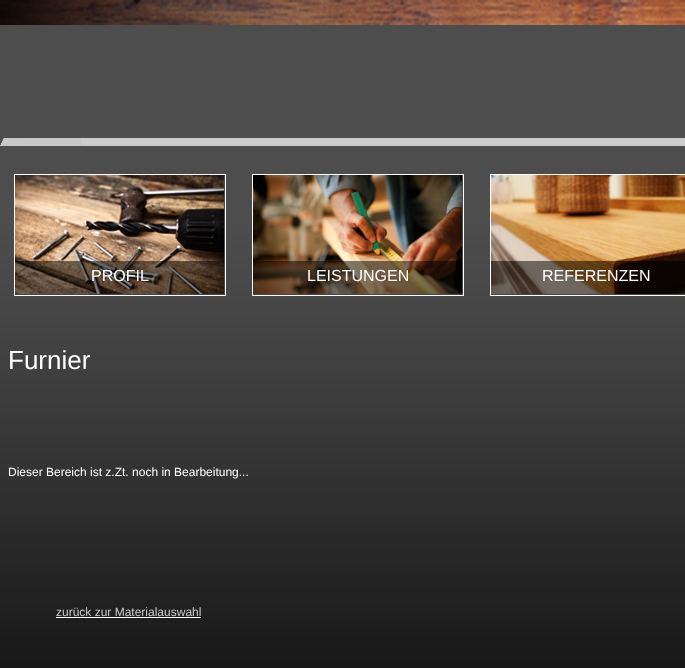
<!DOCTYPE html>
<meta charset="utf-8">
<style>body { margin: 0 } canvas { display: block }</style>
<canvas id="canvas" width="685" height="668"></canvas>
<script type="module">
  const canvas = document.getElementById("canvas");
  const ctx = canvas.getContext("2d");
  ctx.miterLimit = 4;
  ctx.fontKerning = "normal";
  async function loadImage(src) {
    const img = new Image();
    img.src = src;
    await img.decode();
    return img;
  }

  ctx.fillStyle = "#ffffff";
  ctx.fillRect(0, 0, 685, 668);
  ctx.drawImage(await loadImage("img1.png"), 0, 25, 685, 643);
  ctx.drawImage(await loadImage("img2.png"), 0, 0, 685, 25);
  ctx.drawImage(await loadImage("img3.png"), 0, 138, 685, 8);
  ctx.drawImage(await loadImage("img4.png"), 15, 175, 209, 119);
  ctx.strokeStyle = "#ffffff";
  ctx.strokeRect(14.5, 174.5, 211, 121);
  ctx.font = "16px Liberation Sans";
  ctx.fillText("PROFIL", 91, 281);
  ctx.drawImage(await loadImage("img5.png"), 253, 175, 209, 119);
  ctx.strokeRect(252.5, 174.5, 211, 121);
  ctx.fillText("LEISTUNGEN", 307, 281);
  ctx.drawImage(await loadImage("img6.png"), 491, 175, 194, 119);
  ctx.strokeRect(490.5, 174.5, 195, 121);
  ctx.fillText("REFERENZEN", 542, 281);
  ctx.font = "26px Liberation Sans";
  ctx.fillText("Furnier", 8, 369);
  ctx.font = "12px Liberation Sans";
  ctx.fillText("Dieser Bereich ist z.Zt. noch in Bearbeitung...", 8, 476);
  ctx.fillStyle = "#cccccc";
  ctx.fillText("zurück zur Materialauswahl", 56, 616);
  ctx.fillStyle = "#ffffff";
  ctx.fillRect(56, 617, 145, 1);
</script>
